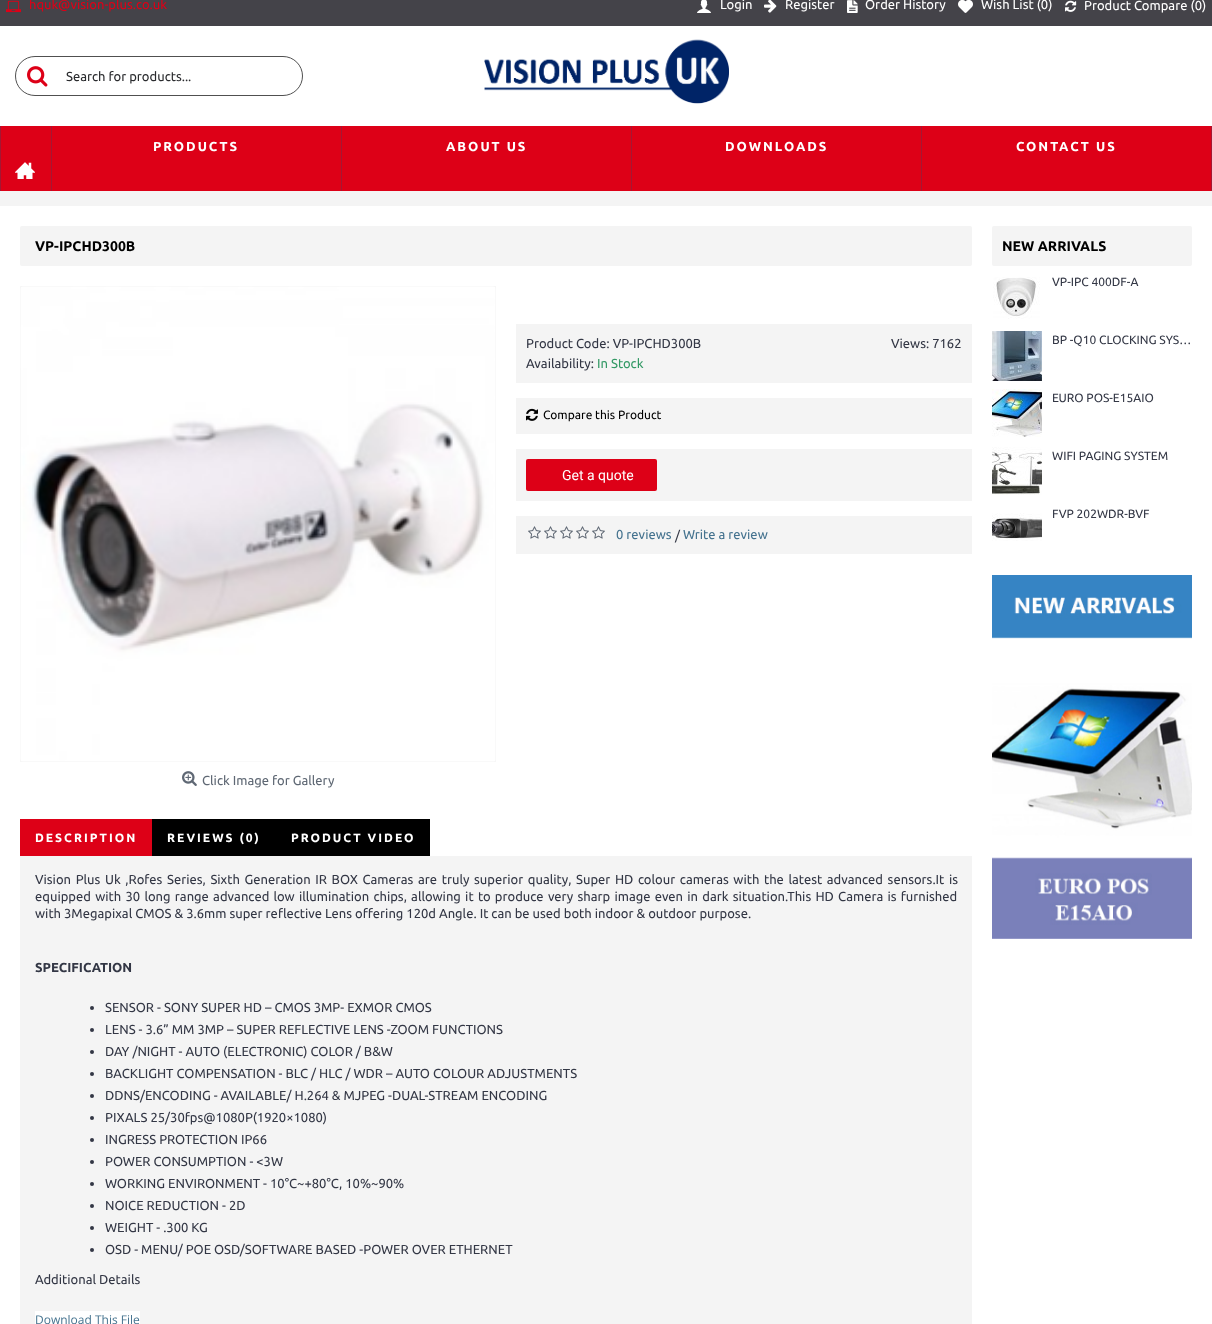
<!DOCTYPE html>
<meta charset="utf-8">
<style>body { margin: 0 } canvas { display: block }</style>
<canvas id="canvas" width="1212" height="1324"></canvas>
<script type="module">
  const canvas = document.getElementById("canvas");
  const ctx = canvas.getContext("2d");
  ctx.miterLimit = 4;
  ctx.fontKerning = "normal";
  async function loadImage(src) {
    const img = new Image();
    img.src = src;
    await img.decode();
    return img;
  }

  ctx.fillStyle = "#ffffff";
  ctx.fillRect(0, 0, 1212, 1324);
  ctx.fillStyle = "#444349";
  ctx.fillRect(0, 0, 1212, 26);
  ctx.drawImage(await loadImage("img1.png"), 6, 0, 15, 13);
  ctx.font = "13px Ubuntu";
  ctx.fillStyle = "#dd0017";
  ctx.fillText("hquk@vision-plus.co.uk", 29, 9);
  ctx.drawImage(await loadImage("img2.png"), 697, 0, 14, 13);
  ctx.fillStyle = "#ffffff";
  ctx.fillText("Login", 720, 9);
  ctx.drawImage(await loadImage("img3.png"), 764, 0, 13, 13);
  ctx.fillText("Register", 785, 9);
  ctx.drawImage(await loadImage("img4.png"), 847, 0, 11, 13);
  ctx.fillText("Order History", 865, 9);
  ctx.drawImage(await loadImage("img5.png"), 958, 0, 15, 13);
  ctx.fillText("Wish List (0)", 981, 9);
  ctx.drawImage(await loadImage("img6.png"), 1065, 0, 12, 12);
  ctx.fillText("Product Compare (0)", 1084, 10);
  ctx.beginPath();
  ctx.roundRect(15.5, 56.5, 287, 39, 19.5);
  ctx.strokeStyle = "#505050";
  ctx.stroke();
  ctx.drawImage(await loadImage("img7.png"), 27, 66, 21, 21);
  ctx.fillStyle = "#2a2b2e";
  ctx.fillText("Search for products...", 66, 81);
  ctx.drawImage(await loadImage("img8.png"), 484, 39, 245, 65);
  ctx.fillStyle = "#dd0017";
  ctx.fillRect(1, 126, 1210, 65);
  ctx.fillStyle = "#a41733";
  ctx.fillRect(1211, 126, 1, 65);
  ctx.fillRect(0, 126, 1, 65);
  ctx.fillRect(51, 126, 1, 65);
  ctx.letterSpacing = "2px";
  ctx.font = "bold 13px Ubuntu";
  ctx.fillStyle = "#ffffff";
  ctx.fillText("PRODUCTS", 153, 151);
  ctx.fillStyle = "#a41733";
  ctx.fillRect(341, 126, 1, 65);
  ctx.fillStyle = "#ffffff";
  ctx.fillText("ABOUT US", 446, 151);
  ctx.fillStyle = "#a41733";
  ctx.fillRect(631, 126, 1, 65);
  ctx.fillStyle = "#ffffff";
  ctx.fillText("DOWNLOADS", 725, 151);
  ctx.fillStyle = "#a41733";
  ctx.fillRect(921, 126, 1, 65);
  ctx.fillStyle = "#ffffff";
  ctx.fillText("CONTACT US", 1016, 151);
  ctx.drawImage(await loadImage("img9.png"), 15, 162, 20, 17);
  ctx.fillStyle = "#f4f4f4";
  ctx.fillRect(0, 191, 1212, 15);
  ctx.beginPath();
  ctx.roundRect(20, 226, 952, 40, 2);
  ctx.fill();
  ctx.letterSpacing = "0px";
  ctx.font = "bold 14px Ubuntu";
  ctx.fillStyle = "#000000";
  ctx.fillText("VP-IPCHD300B", 35, 251);
  ctx.fillStyle = "#f4f4f4";
  ctx.fillRect(516, 324, 456, 59);
  ctx.font = "13px Ubuntu";
  ctx.fillStyle = "#333745";
  ctx.fillText("Product Code: VP-IPCHD300B", 526, 348);
  ctx.fillText("Views: 7162", 891, 348);
  ctx.fillText("Availability:", 526, 368);
  ctx.fillStyle = "#339965";
  ctx.fillText("In Stock", 597, 368);
  ctx.fillStyle = "#f4f4f4";
  ctx.fillRect(516, 398, 456, 36);
  ctx.drawImage(await loadImage("img10.png"), 526, 408, 12, 13);
  ctx.font = "12px Ubuntu";
  ctx.fillStyle = "#000000";
  ctx.fillText("Compare this Product", 543, 419);
  ctx.fillStyle = "#f4f4f4";
  ctx.fillRect(516, 449, 456, 52);
  ctx.fillStyle = "#dd0017";
  ctx.beginPath();
  ctx.roundRect(526, 459, 131, 32, 2);
  ctx.fill();
  ctx.font = "14px Roboto";
  ctx.fillStyle = "#ffffff";
  ctx.fillText("Get a quote", 562, 480);
  ctx.fillStyle = "#f4f4f4";
  ctx.fillRect(516, 516, 456, 38);
  ctx.drawImage(await loadImage("img11.png"), 528, 526, 13, 13);
  ctx.drawImage(await loadImage("img11.png"), 544, 526, 13, 13);
  ctx.drawImage(await loadImage("img11.png"), 560, 526, 13, 13);
  ctx.drawImage(await loadImage("img11.png"), 576, 526, 13, 13);
  ctx.drawImage(await loadImage("img11.png"), 592, 526, 13, 13);
  ctx.font = "13px Ubuntu";
  ctx.fillStyle = "#45738f";
  ctx.fillText("0 reviews", 616, 539);
  ctx.fillStyle = "#333745";
  ctx.fillText("/", 675, 540);
  ctx.fillStyle = "#45738f";
  ctx.fillText("Write a review", 683, 539);
  ctx.strokeStyle = "#f4f4f4";
  ctx.strokeRect(20.5, 286.5, 475, 475);
  ctx.drawImage(await loadImage("img12.png"), 20, 286, 476, 476);
  ctx.drawImage(await loadImage("img13.png"), 182, 771, 15, 15);
  ctx.fillStyle = "#5f6874";
  ctx.fillText("Click Image for Gallery", 202, 785);
  ctx.fillStyle = "#dd0017";
  ctx.fillRect(20, 819, 132, 37);
  ctx.letterSpacing = "2px";
  ctx.font = "bold 12px Ubuntu";
  ctx.fillStyle = "#ffffff";
  ctx.fillText("DESCRIPTION", 35, 842);
  ctx.fillStyle = "#000000";
  ctx.fillRect(152, 819, 278, 37);
  ctx.fillStyle = "#ffffff";
  ctx.fillText("REVIEWS (0)", 167, 842);
  ctx.fillText("PRODUCT VIDEO", 291, 842);
  ctx.fillStyle = "#f4f4f4";
  ctx.fillRect(20, 856, 952, 468);
  ctx.letterSpacing = "0px";
  ctx.wordSpacing = "1.6px";
  ctx.font = "13px Ubuntu";
  ctx.fillStyle = "#333745";
  ctx.fillText("Vision Plus Uk ,Rofes Series, Sixth Generation IR BOX Cameras are truly superior quality, Super HD colour cameras with the latest advanced sensors.It is", 35, 884);
  ctx.wordSpacing = "1.25px";
  ctx.fillText("equipped with 30 long range advanced low illumination chips, allowing it to produce very sharp image even in dark situation.This HD Camera is furnished", 35, 901);
  ctx.wordSpacing = "0px";
  ctx.fillText("with 3Megapixal CMOS & 3.6mm super reflective Lens offering 120d Angle. It can be used both indoor & outdoor purpose.", 35, 918);
  ctx.font = "bold 13px Ubuntu";
  ctx.fillText("SPECIFICATION", 35, 972);
  ctx.beginPath();
  ctx.arc(92, 1008, 2, 0, Math.PI * 2);
  ctx.fill();
  ctx.font = "13px Ubuntu";
  ctx.fillText("SENSOR - SONY SUPER HD – CMOS 3MP- EXMOR CMOS", 105, 1012);
  ctx.beginPath();
  ctx.arc(92, 1030, 2, 0, Math.PI * 2);
  ctx.fill();
  ctx.fillText("LENS - 3.6” MM 3MP – SUPER REFLECTIVE LENS -ZOOM FUNCTIONS", 105, 1034);
  ctx.beginPath();
  ctx.arc(92, 1052, 2, 0, Math.PI * 2);
  ctx.fill();
  ctx.fillText("DAY /NIGHT - AUTO (ELECTRONIC) COLOR / B&W", 105, 1056);
  ctx.beginPath();
  ctx.arc(92, 1074, 2, 0, Math.PI * 2);
  ctx.fill();
  ctx.fillText("BACKLIGHT COMPENSATION - BLC / HLC / WDR – AUTO COLOUR ADJUSTMENTS", 105, 1078);
  ctx.beginPath();
  ctx.arc(92, 1096, 2, 0, Math.PI * 2);
  ctx.fill();
  ctx.fillText("DDNS/ENCODING - AVAILABLE/ H.264 & MJPEG -DUAL-STREAM ENCODING", 105, 1100);
  ctx.beginPath();
  ctx.arc(92, 1118, 2, 0, Math.PI * 2);
  ctx.fill();
  ctx.fillText("PIXALS 25/30fps@1080P(1920×1080)", 105, 1122);
  ctx.beginPath();
  ctx.arc(92, 1140, 2, 0, Math.PI * 2);
  ctx.fill();
  ctx.fillText("INGRESS PROTECTION IP66", 105, 1144);
  ctx.beginPath();
  ctx.arc(92, 1162, 2, 0, Math.PI * 2);
  ctx.fill();
  ctx.fillText("POWER CONSUMPTION - <3W", 105, 1166);
  ctx.beginPath();
  ctx.arc(92, 1184, 2, 0, Math.PI * 2);
  ctx.fill();
  ctx.fillText("WORKING ENVIRONMENT - 10°C~+80°C, 10%~90%", 105, 1188);
  ctx.beginPath();
  ctx.arc(92, 1206, 2, 0, Math.PI * 2);
  ctx.fill();
  ctx.fillText("NOICE REDUCTION - 2D", 105, 1210);
  ctx.beginPath();
  ctx.arc(92, 1228, 2, 0, Math.PI * 2);
  ctx.fill();
  ctx.fillText("WEIGHT - .300 KG", 105, 1232);
  ctx.beginPath();
  ctx.arc(92, 1250, 2, 0, Math.PI * 2);
  ctx.fill();
  ctx.fillText("OSD - MENU/ POE OSD/SOFTWARE BASED -POWER OVER ETHERNET", 105, 1254);
  ctx.fillText("Additional Details", 35, 1284);
  ctx.fillStyle = "#ffffff";
  ctx.fillRect(35, 1311, 105, 13);
  ctx.font = "12px Open Sans";
  ctx.fillStyle = "#45738f";
  ctx.fillText("Download This File", 35, 1324);
  ctx.fillStyle = "#f4f4f4";
  ctx.beginPath();
  ctx.roundRect(992, 226, 200, 40, 2);
  ctx.fill();
  ctx.font = "bold 14px Ubuntu";
  ctx.fillStyle = "#000000";
  ctx.fillText("NEW ARRIVALS", 1002, 251);
  ctx.drawImage(await loadImage("img14.png"), 993, 277, 47, 42);
  ctx.font = "12px Ubuntu";
  ctx.fillStyle = "#333745";
  ctx.fillText("VP-IPC 400DF-A", 1052, 286);
  ctx.drawImage(await loadImage("img15.png"), 992, 331, 50, 50);
  ctx.fillText("BP -Q10 CLOCKING SYS…", 1052, 344);
  ctx.drawImage(await loadImage("img16.png"), 992, 389, 50, 48);
  ctx.fillText("EURO POS-E15AIO", 1052, 402);
  ctx.drawImage(await loadImage("img17.png"), 992, 447, 50, 48);
  ctx.fillText("WIFI PAGING SYSTEM", 1052, 460);
  ctx.drawImage(await loadImage("img18.png"), 992, 513, 50, 28);
  ctx.fillText("FVP 202WDR-BVF", 1052, 518);
  ctx.drawImage(await loadImage("img19.png"), 992, 575, 200, 364);
</script>
